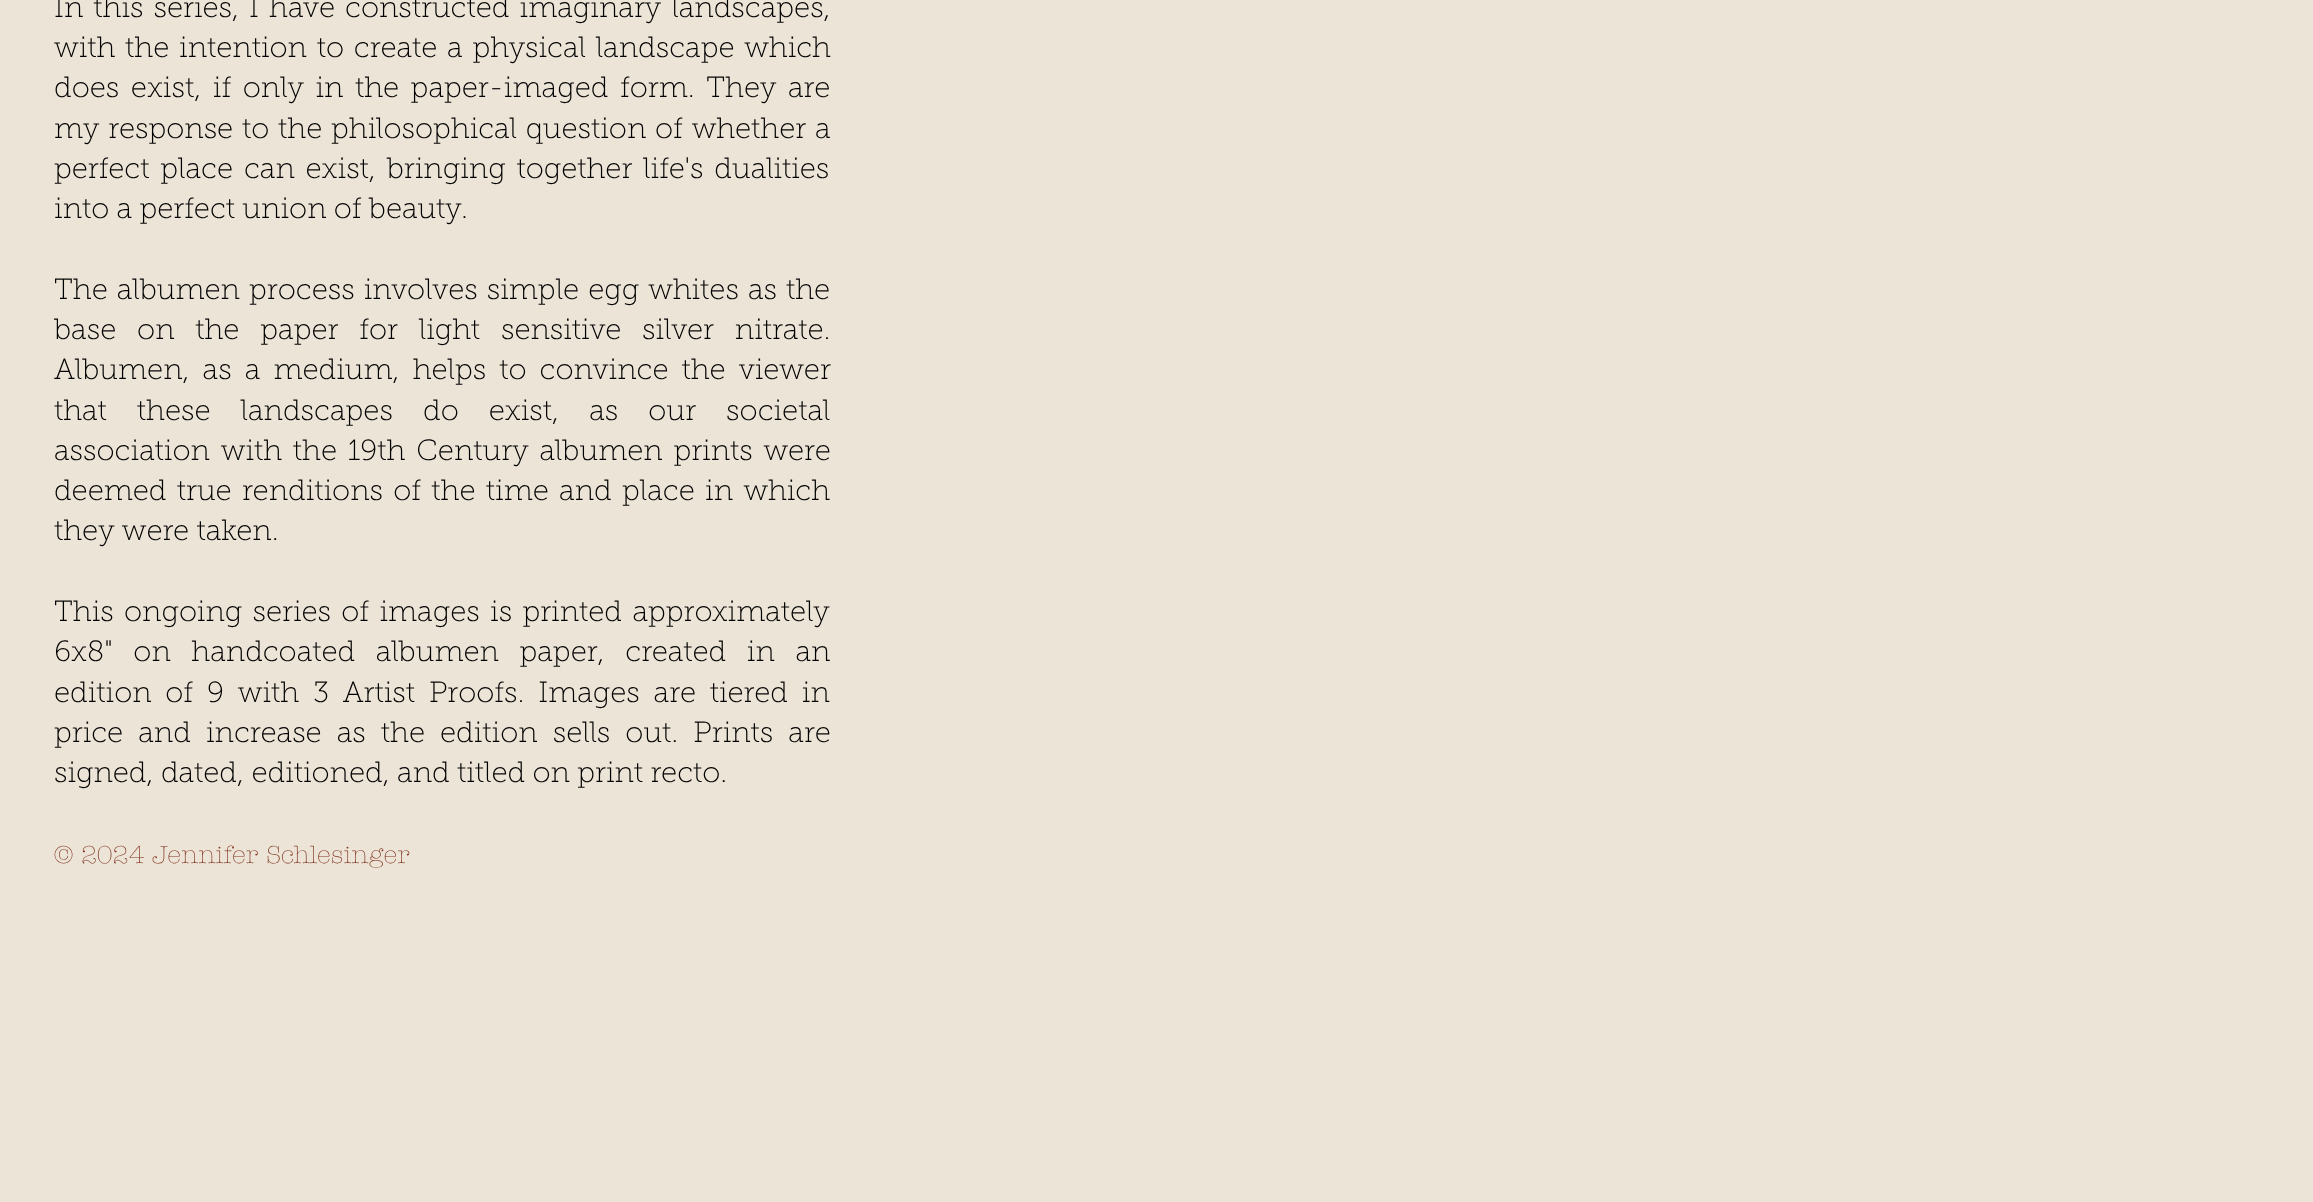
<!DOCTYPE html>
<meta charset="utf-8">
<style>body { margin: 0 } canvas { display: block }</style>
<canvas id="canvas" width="2313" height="1202"></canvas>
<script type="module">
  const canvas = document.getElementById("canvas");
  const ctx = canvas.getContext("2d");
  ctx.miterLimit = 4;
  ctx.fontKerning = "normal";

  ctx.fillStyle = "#ece4d6";
  ctx.fillRect(0, 0, 2313, 1202);
  ctx.wordSpacing = "2.75px";
  ctx.font = "100 29.25px 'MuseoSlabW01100'";
  ctx.fillStyle = "#000000";
  ctx.fillText("In this series, I have constructed imaginary landscapes,", 54, 17);
  ctx.wordSpacing = "2.5px";
  ctx.fillText("with the intention to create a physical landscape which", 54, 57);
  ctx.wordSpacing = "4.25px";
  ctx.fillText("does exist, if only in the paper-imaged form. They are", 54, 97);
  ctx.wordSpacing = "1.5px";
  ctx.fillText("my response to the philosophical question of whether a", 54, 138);
  ctx.wordSpacing = "3.5px";
  ctx.fillText("perfect place can exist, bringing together life's dualities", 54, 178);
  ctx.wordSpacing = "0px";
  ctx.fillText("into a perfect union of beauty.", 54, 218);
  ctx.wordSpacing = "1.75px";
  ctx.fillText("The albumen process involves simple egg whites as the", 54, 299);
  ctx.wordSpacing = "13.5px";
  ctx.fillText("base on the paper for light sensitive silver nitrate.", 54, 339);
  ctx.wordSpacing = "5.75px";
  ctx.fillText("Albumen, as a medium, helps to convince the viewer", 54, 379);
  ctx.wordSpacing = "22.75px";
  ctx.fillText("that these landscapes do exist, as our societal", 54, 420);
  ctx.wordSpacing = "3.5px";
  ctx.fillText("association with the 19th Century albumen prints were", 54, 460);
  ctx.wordSpacing = "3px";
  ctx.fillText("deemed true renditions of the time and place in which", 54, 500);
  ctx.wordSpacing = "0px";
  ctx.fillText("they were taken.", 54, 540);
  ctx.wordSpacing = "3px";
  ctx.fillText("This ongoing series of images is printed approximately", 54, 621);
  ctx.wordSpacing = "13.25px";
  ctx.fillText("6x8\" on handcoated albumen paper, created in an", 54, 661);
  ctx.wordSpacing = "6.5px";
  ctx.fillText("edition of 9 with 3 Artist Proofs. Images are tiered in", 54, 702);
  ctx.wordSpacing = "7.75px";
  ctx.fillText("price and increase as the edition sells out. Prints are", 54, 742);
  ctx.wordSpacing = "0px";
  ctx.fillText("signed, dated, editioned, and titled on print recto.", 54, 782);
  ctx.font = "300 24.75px 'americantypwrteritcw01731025'";
  ctx.fillStyle = "#823522";
  ctx.fillText("© 2024 Jennifer Schlesinger", 54, 863);
</script>
